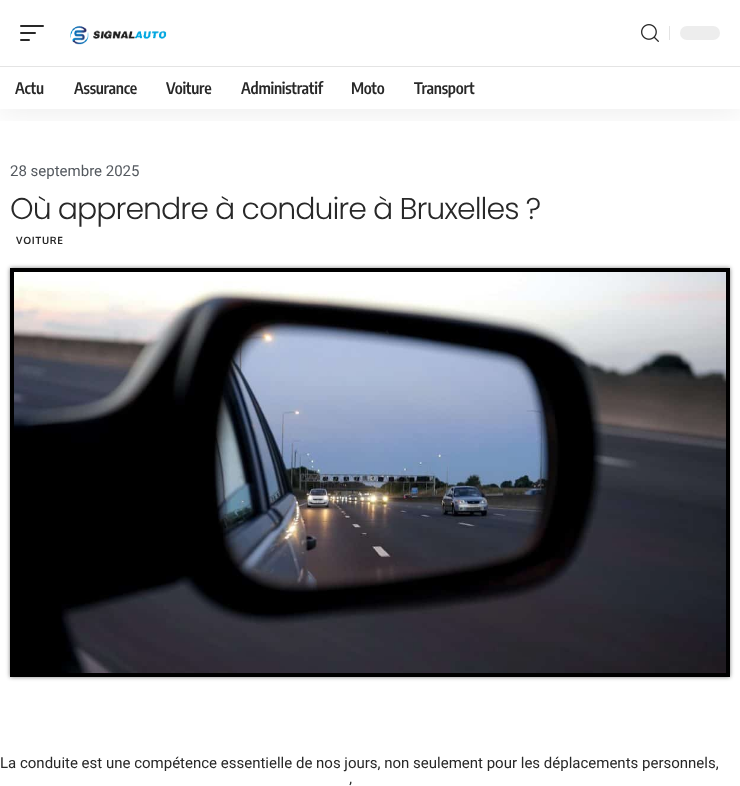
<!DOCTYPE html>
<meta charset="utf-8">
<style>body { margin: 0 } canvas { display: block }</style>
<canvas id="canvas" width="740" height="786"></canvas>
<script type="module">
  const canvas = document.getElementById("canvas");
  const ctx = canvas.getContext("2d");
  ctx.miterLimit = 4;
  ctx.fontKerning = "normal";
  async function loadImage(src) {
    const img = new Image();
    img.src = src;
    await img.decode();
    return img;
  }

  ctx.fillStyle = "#ffffff";
  ctx.fillRect(0, 0, 740, 786);
  ctx.save();
  ctx.beginPath();
  ctx.rect(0, 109, 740, 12);
  ctx.clip();
  ctx.fillStyle = "rgba(0, 0, 0, 0.07)";
  ctx.filter = "blur(15px)";
  ctx.beginPath();
  ctx.rect(0, 4, 740, 109);
  ctx.fill();
  ctx.filter = "none";
  ctx.restore();
  ctx.fillStyle = "#282828";
  ctx.beginPath();
  ctx.roundRect(20, 25, 24, 2, 1);
  ctx.fill();
  ctx.beginPath();
  ctx.roundRect(20, 32, 16, 2, 1);
  ctx.fill();
  ctx.beginPath();
  ctx.roundRect(20, 39, 10, 2, 1);
  ctx.fill();
  ctx.drawImage(await loadImage("img1.png"), 70, 25, 97, 20);
  ctx.drawImage(await loadImage("img2.png"), 641, 24, 18, 18);
  ctx.fillStyle = "#e4e4e4";
  ctx.fillRect(669, 26, 1, 14);
  ctx.fillStyle = "#ededed";
  ctx.beginPath();
  ctx.roundRect(680, 26, 40, 14, 7);
  ctx.fill();
  ctx.fillStyle = "#e4e4e4";
  ctx.fillRect(0, 66, 740, 1);
  ctx.letterSpacing = "-0.25px";
  ctx.font = "600 16px Encode Sans Condensed";
  ctx.fillStyle = "#282828";
  ctx.fillText("Actu", 15, 94);
  ctx.fillText("Assurance", 74, 94);
  ctx.fillText("Voiture", 166, 94);
  ctx.fillText("Administratif", 241, 94);
  ctx.fillText("Moto", 351, 94);
  ctx.fillText("Transport", 414, 94);
  ctx.letterSpacing = "0px";
  ctx.font = "15px Roboto";
  ctx.fillStyle = "#54595f";
  ctx.fillText("28 septembre 2025", 10, 176);
  ctx.letterSpacing = "-1px";
  ctx.font = "300 30px Poppins";
  ctx.fillStyle = "#282828";
  ctx.fillText("Où apprendre à conduire à Bruxelles ?", 10, 219);
  ctx.letterSpacing = "0.75px";
  ctx.font = "bold 10px Oxygen";
  ctx.fillText("VOITURE", 16, 244);
  ctx.fillStyle = "rgba(0, 0, 0, 0.5)";
  ctx.filter = "blur(2px)";
  ctx.beginPath();
  ctx.rect(10, 268, 720, 409);
  ctx.fill();
  ctx.filter = "none";
  ctx.strokeStyle = "#000000";
  ctx.lineWidth = 4;
  ctx.strokeRect(12, 270, 716, 405);
  ctx.drawImage(await loadImage("img3.png"), 14, 272, 712, 401);
  ctx.letterSpacing = "0px";
  ctx.font = "15px Roboto";
  ctx.fillStyle = "#282828";
  ctx.fillText("La conduite est une compétence essentielle de nos jours, non seulement pour les déplacements personnels,", 0, 768);
  ctx.fillText("’", 349, 793);
</script>
